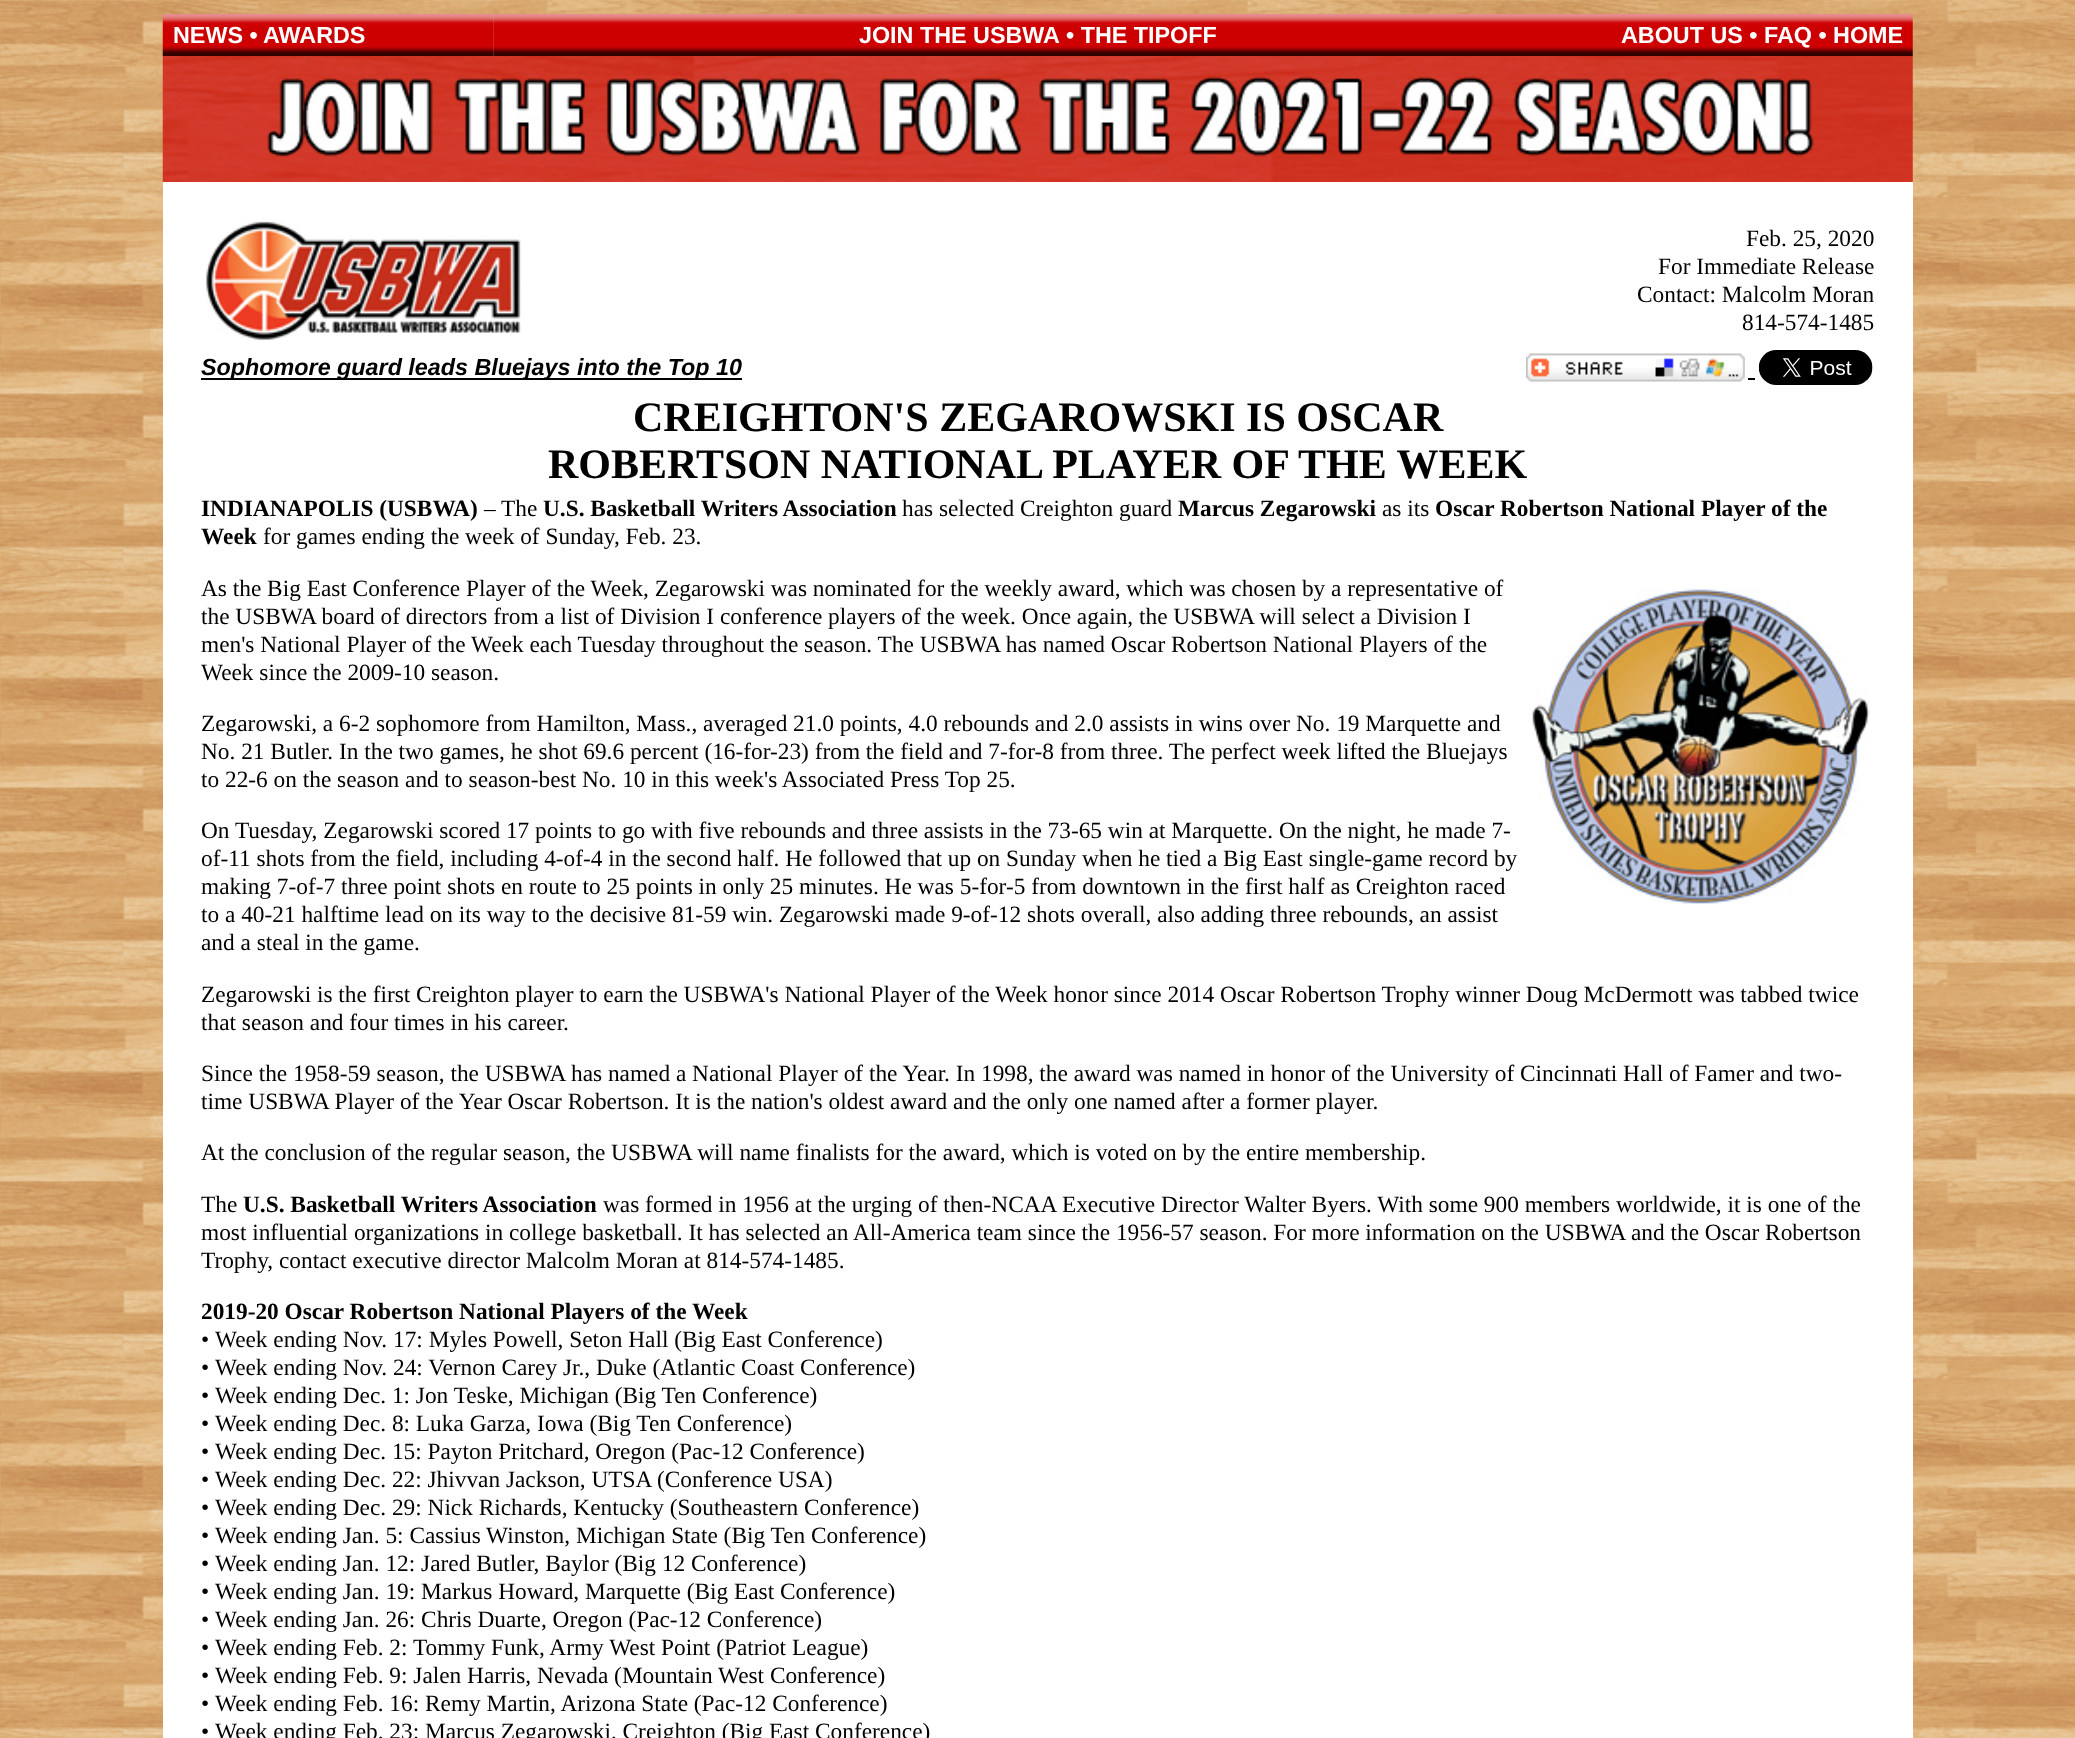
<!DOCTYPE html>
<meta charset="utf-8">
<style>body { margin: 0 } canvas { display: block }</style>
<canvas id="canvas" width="2075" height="1738"></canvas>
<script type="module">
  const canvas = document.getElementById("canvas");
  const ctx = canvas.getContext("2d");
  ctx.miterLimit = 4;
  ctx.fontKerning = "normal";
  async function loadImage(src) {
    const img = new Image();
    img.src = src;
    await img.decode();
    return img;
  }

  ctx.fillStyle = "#ffffff";
  ctx.fillRect(0, 0, 2075, 1738);
  ctx.drawImage(await loadImage("img1.png"), 0, 0, 2075, 1738);
  ctx.drawImage(await loadImage("img2.png"), 162, 14, 332, 42);
  ctx.font = "bold 23.33px Liberation Sans";
  ctx.fillText("NEWS •", 173, 43);
  ctx.fillText("AWARDS", 263, 43);
  ctx.drawImage(await loadImage("img3.png"), 493, 14, 1089, 42);
  ctx.fillText("JOIN THE USBWA", 859, 43);
  ctx.fillText("• THE TIPOFF", 1066, 43);
  ctx.drawImage(await loadImage("img4.png"), 1582, 14, 331, 42);
  ctx.fillText("ABOUT US • FAQ • HOME", 1621, 43);
  ctx.drawImage(await loadImage("img5.png"), 162, 56, 1751, 126);
  ctx.fillRect(163, 182, 1750, 1556);
  ctx.drawImage(await loadImage("img6.png"), 206, 221, 315, 119);
  ctx.font = "23.33px Liberation Serif";
  ctx.fillStyle = "#000000";
  ctx.fillText("Feb. 25, 2020", 1746, 246);
  ctx.fillText("For Immediate Release", 1658, 274);
  ctx.fillText("Contact: Malcolm Moran", 1637, 302);
  ctx.fillText("814-574-1485", 1742, 330);
  ctx.fillRect(201, 378, 541, 2);
  ctx.font = "italic bold 23.33px Liberation Sans";
  ctx.fillText("Sophomore guard leads Bluejays into the Top 10", 201, 375);
  ctx.drawImage(await loadImage("img7.png"), 1526, 353, 219, 29);
  ctx.fillRect(1748, 378, 7, 2);
  ctx.drawImage(await loadImage("img8.png"), 1758, 350, 115, 35);
  ctx.font = "bold 42px Liberation Serif";
  ctx.fillText("CREIGHTON'S ZEGAROWSKI IS OSCAR", 633, 431);
  ctx.fillText("ROBERTSON NATIONAL PLAYER OF THE WEEK", 548, 478);
  ctx.font = "bold 23.33px Liberation Serif";
  ctx.fillText("INDIANAPOLIS (USBWA)", 201, 516);
  ctx.font = "23.33px Liberation Serif";
  ctx.fillText("– The", 484, 516);
  ctx.font = "bold 23.33px Liberation Serif";
  ctx.fillText("U.S. Basketball Writers Association", 543, 516);
  ctx.font = "23.33px Liberation Serif";
  ctx.fillText("has selected Creighton guard", 902, 516);
  ctx.font = "bold 23.33px Liberation Serif";
  ctx.fillText("Marcus Zegarowski", 1178, 516);
  ctx.font = "23.33px Liberation Serif";
  ctx.fillText("as its", 1382, 516);
  ctx.font = "bold 23.33px Liberation Serif";
  ctx.fillText("Oscar Robertson National Player of the", 1435, 516);
  ctx.fillText("Week", 201, 544);
  ctx.font = "23.33px Liberation Serif";
  ctx.fillText("for games ending the week of Sunday, Feb. 23.", 263, 544);
  ctx.fillText("As the Big East Conference Player of the Week, Zegarowski was nominated for the weekly award, which was chosen by a representative of", 201, 596);
  ctx.drawImage(await loadImage("img9.png"), 1532, 589, 338, 315);
  ctx.fillText("the USBWA board of directors from a list of Division I conference players of the week. Once again, the USBWA will select a Division I", 201, 624);
  ctx.fillText("men's National Player of the Week each Tuesday throughout the season. The USBWA has named Oscar Robertson National Players of the", 201, 652);
  ctx.fillText("Week since the 2009-10 season.", 201, 680);
  ctx.fillText("Zegarowski, a 6-2 sophomore from Hamilton, Mass., averaged 21.0 points, 4.0 rebounds and 2.0 assists in wins over No. 19 Marquette and", 201, 731);
  ctx.fillText("No. 21 Butler. In the two games, he shot 69.6 percent (16-for-23) from the field and 7-for-8 from three. The perfect week lifted the Bluejays", 201, 759);
  ctx.fillText("to 22-6 on the season and to season-best No. 10 in this week's Associated Press Top 25.", 201, 787);
  ctx.fillText("On Tuesday, Zegarowski scored 17 points to go with five rebounds and three assists in the 73-65 win at Marquette. On the night, he made 7-", 201, 838);
  ctx.fillText("of-11 shots from the field, including 4-of-4 in the second half. He followed that up on Sunday when he tied a Big East single-game record by", 201, 866);
  ctx.fillText("making 7-of-7 three point shots en route to 25 points in only 25 minutes. He was 5-for-5 from downtown in the first half as Creighton raced", 201, 894);
  ctx.fillText("to a 40-21 halftime lead on its way to the decisive 81-59 win. Zegarowski made 9-of-12 shots overall, also adding three rebounds, an assist", 201, 922);
  ctx.fillText("and a steal in the game.", 201, 950);
  ctx.fillText("Zegarowski is the first Creighton player to earn the USBWA's National Player of the Week honor since 2014 Oscar Robertson Trophy winner Doug McDermott was tabbed twice", 201, 1002);
  ctx.fillText("that season and four times in his career.", 201, 1030);
  ctx.fillText("Since the 1958-59 season, the USBWA has named a National Player of the Year. In 1998, the award was named in honor of the University of Cincinnati Hall of Famer and two-", 201, 1081);
  ctx.fillText("time USBWA Player of the Year Oscar Robertson. It is the nation's oldest award and the only one named after a former player.", 201, 1109);
  ctx.fillText("At the conclusion of the regular season, the USBWA will name finalists for the award, which is voted on by the entire membership.", 201, 1160);
  ctx.fillText("The", 201, 1212);
  ctx.font = "bold 23.33px Liberation Serif";
  ctx.fillText("U.S. Basketball Writers Association", 243, 1212);
  ctx.font = "23.33px Liberation Serif";
  ctx.fillText("was formed in 1956 at the urging of then-NCAA Executive Director Walter Byers. With some 900 members worldwide, it is one of the", 603, 1212);
  ctx.fillText("most influential organizations in college basketball. It has selected an All-America team since the 1956-57 season. For more information on the USBWA and the Oscar Robertson", 201, 1240);
  ctx.fillText("Trophy, contact executive director Malcolm Moran at 814-574-1485.", 201, 1268);
  ctx.font = "bold 23.33px Liberation Serif";
  ctx.fillText("2019-20 Oscar Robertson National Players of the Week", 201, 1319);
  ctx.font = "23.33px Liberation Serif";
  ctx.fillText("•", 201, 1347);
  ctx.fillText("Week ending Nov. 17: Myles Powell, Seton Hall (Big East Conference)", 215, 1347);
  ctx.fillText("•", 201, 1375);
  ctx.fillText("Week ending Nov. 24: Vernon Carey Jr., Duke (Atlantic Coast Conference)", 215, 1375);
  ctx.fillText("•", 201, 1403);
  ctx.fillText("Week ending Dec. 1: Jon Teske, Michigan (Big Ten Conference)", 215, 1403);
  ctx.fillText("•", 201, 1431);
  ctx.fillText("Week ending Dec. 8: Luka Garza, Iowa (Big Ten Conference)", 215, 1431);
  ctx.fillText("•", 201, 1459);
  ctx.fillText("Week ending Dec. 15: Payton Pritchard, Oregon (Pac-12 Conference)", 215, 1459);
  ctx.fillText("•", 201, 1487);
  ctx.fillText("Week ending Dec. 22: Jhivvan Jackson, UTSA (Conference USA)", 215, 1487);
  ctx.fillText("•", 201, 1515);
  ctx.fillText("Week ending Dec. 29: Nick Richards, Kentucky (Southeastern Conference)", 215, 1515);
  ctx.fillText("•", 201, 1543);
  ctx.fillText("Week ending Jan. 5: Cassius Winston, Michigan State (Big Ten Conference)", 215, 1543);
  ctx.fillText("•", 201, 1571);
  ctx.fillText("Week ending Jan. 12: Jared Butler, Baylor (Big 12 Conference)", 215, 1571);
  ctx.fillText("•", 201, 1599);
  ctx.fillText("Week ending Jan. 19: Markus Howard, Marquette (Big East Conference)", 215, 1599);
  ctx.fillText("•", 201, 1627);
  ctx.fillText("Week ending Jan. 26: Chris Duarte, Oregon (Pac-12 Conference)", 215, 1627);
  ctx.fillText("•", 201, 1655);
  ctx.fillText("Week ending Feb. 2: Tommy Funk, Army West Point (Patriot League)", 215, 1655);
  ctx.fillText("•", 201, 1683);
  ctx.fillText("Week ending Feb. 9: Jalen Harris, Nevada (Mountain West Conference)", 215, 1683);
  ctx.fillText("•", 201, 1711);
  ctx.fillText("Week ending Feb. 16: Remy Martin, Arizona State (Pac-12 Conference)", 215, 1711);
  ctx.fillText("•", 201, 1739);
  ctx.fillText("Week ending Feb. 23: Marcus Zegarowski, Creighton (Big East Conference)", 215, 1739);
</script>
